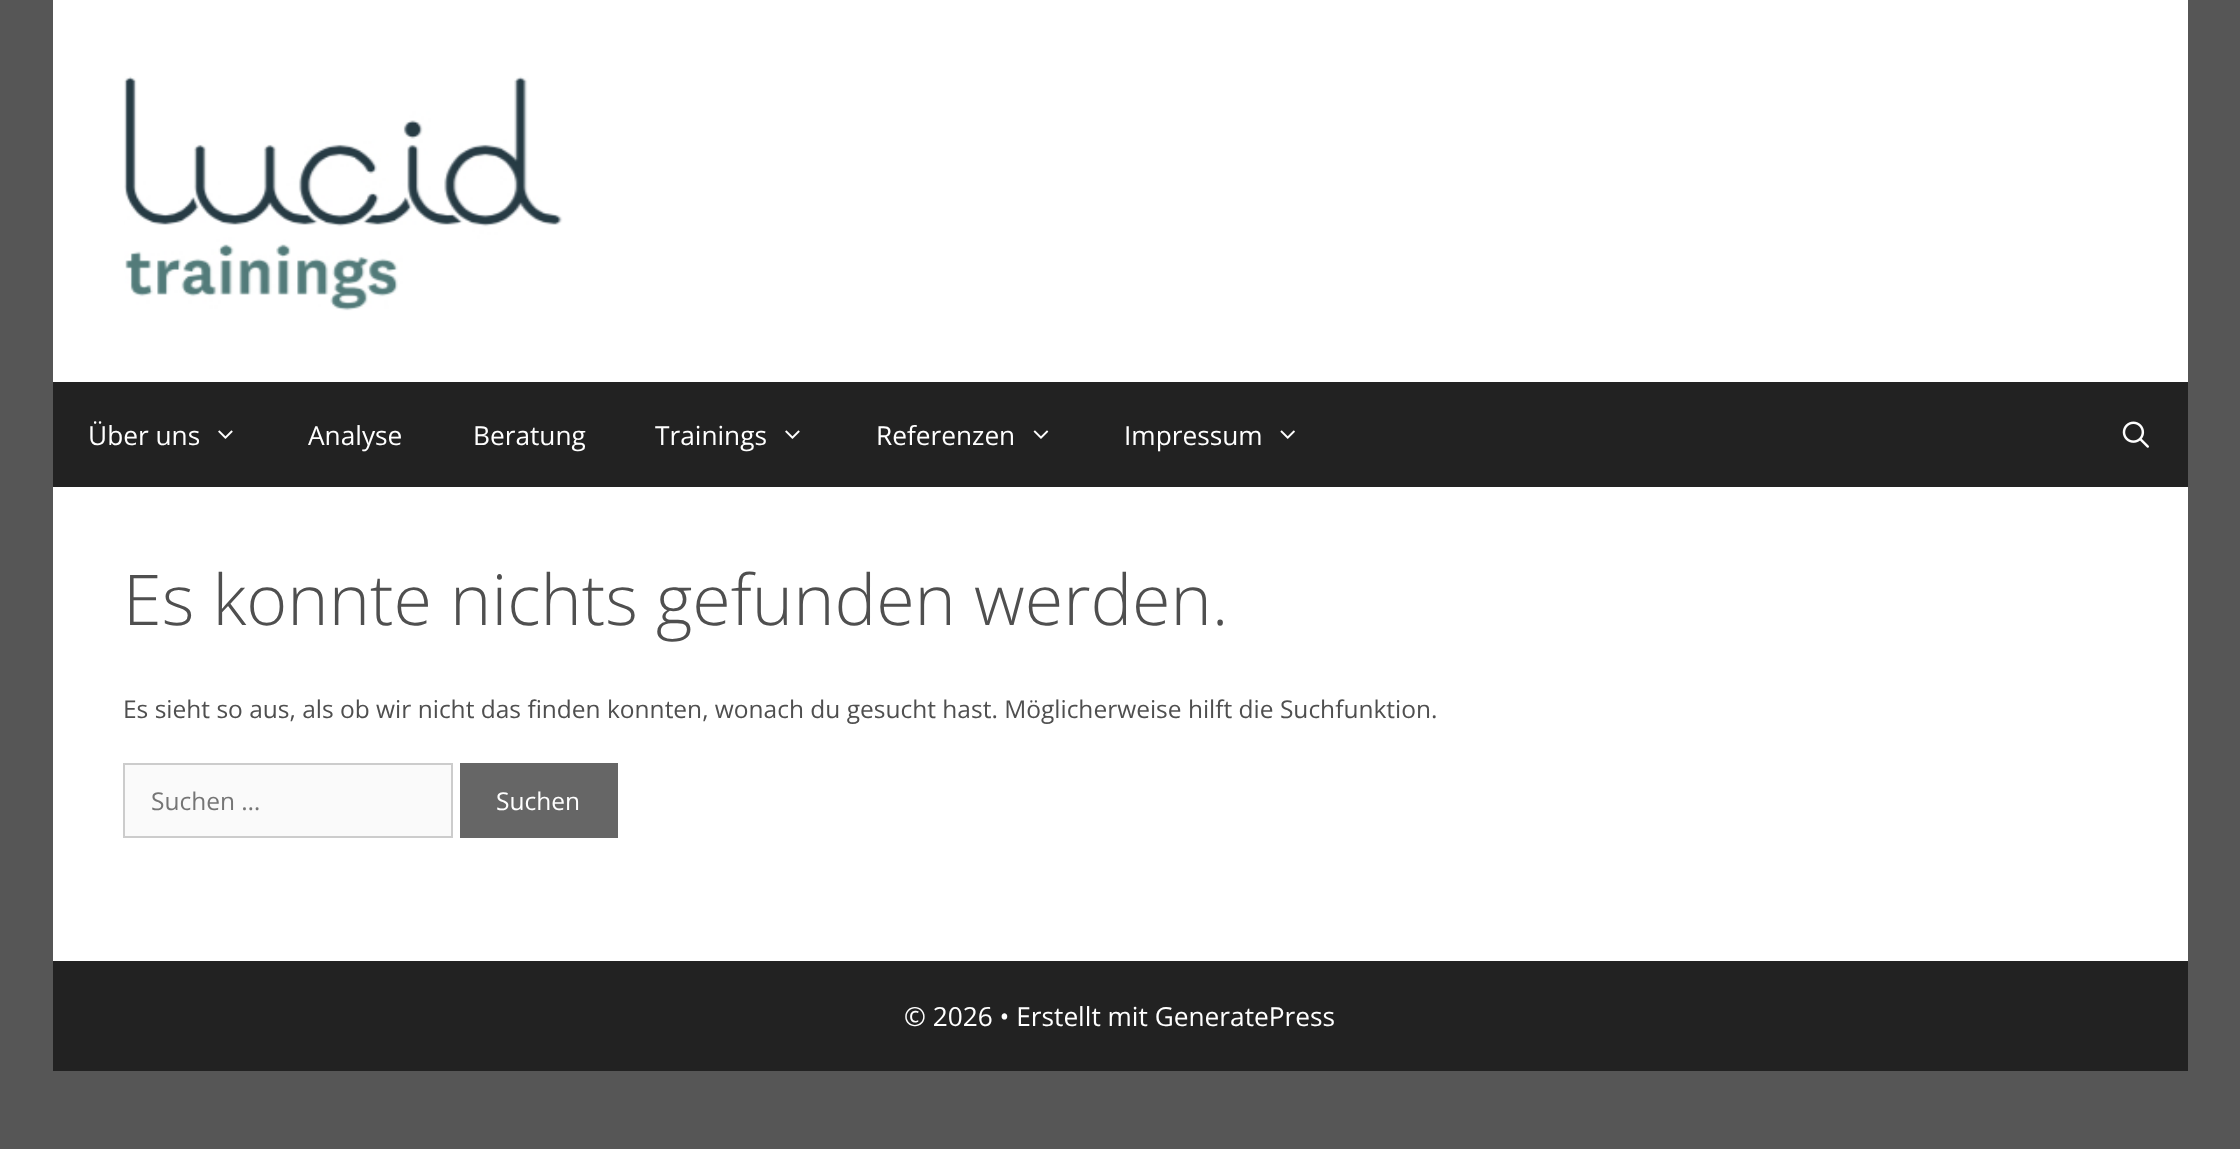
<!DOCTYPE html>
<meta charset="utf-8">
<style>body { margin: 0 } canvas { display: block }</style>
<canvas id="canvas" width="2240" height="1149"></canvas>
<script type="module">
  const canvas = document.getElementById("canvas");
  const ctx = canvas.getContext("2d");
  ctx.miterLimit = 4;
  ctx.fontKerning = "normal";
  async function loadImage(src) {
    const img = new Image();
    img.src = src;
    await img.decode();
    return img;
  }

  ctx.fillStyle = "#565656";
  ctx.fillRect(0, 0, 2240, 1149);
  ctx.fillStyle = "#ffffff";
  ctx.fillRect(53, 0, 2135, 382);
  ctx.drawImage(await loadImage("img1.png"), 124, 76, 439, 235);
  ctx.fillStyle = "#222222";
  ctx.fillRect(53, 382, 2135, 105);
  ctx.font = "26.25px Open Sans";
  ctx.fillStyle = "#ffffff";
  ctx.fillText("Über uns", 88, 445);
  ctx.drawImage(await loadImage("img2.png"), 218, 430, 15, 9);
  ctx.fillText("Analyse", 308, 445);
  ctx.fillText("Beratung", 473, 445);
  ctx.fillText("Trainings", 655, 445);
  ctx.drawImage(await loadImage("img2.png"), 785, 430, 15, 9);
  ctx.fillText("Referenzen", 876, 445);
  ctx.drawImage(await loadImage("img3.png"), 1033, 430, 16, 9);
  ctx.fillText("Impressum", 1124, 445);
  ctx.drawImage(await loadImage("img4.png"), 1280, 430, 15, 9);
  ctx.drawImage(await loadImage("img5.png"), 2122, 421, 27, 27);
  ctx.fillRect(53, 487, 2135, 474);
  ctx.font = "300 70px Open Sans";
  ctx.fillStyle = "#4f4f4f";
  ctx.fillText("Es konnte nichts gefunden werden.", 123, 625);
  ctx.font = "24.5px Open Sans";
  ctx.fillText("Es sieht so aus, als ob wir nicht das finden konnten, wonach du gesucht hast. Möglicherweise hilft die Suchfunktion.", 123, 718);
  ctx.fillStyle = "#fafafa";
  ctx.beginPath();
  ctx.rect(124, 764, 328, 73);
  ctx.fill();
  ctx.strokeStyle = "#cccccc";
  ctx.lineWidth = 2;
  ctx.stroke();
  ctx.fillStyle = "#757575";
  ctx.fillText("Suchen …", 151, 810);
  ctx.fillStyle = "#666666";
  ctx.fillRect(460, 763, 158, 75);
  ctx.fillStyle = "#ffffff";
  ctx.fillText("Suchen", 496, 810);
  ctx.fillStyle = "#222222";
  ctx.fillRect(53, 961, 2135, 110);
  ctx.font = "26.25px Open Sans";
  ctx.fillStyle = "#ffffff";
  ctx.fillText("© 2026 • Erstellt mit GeneratePress", 904, 1026);
</script>
